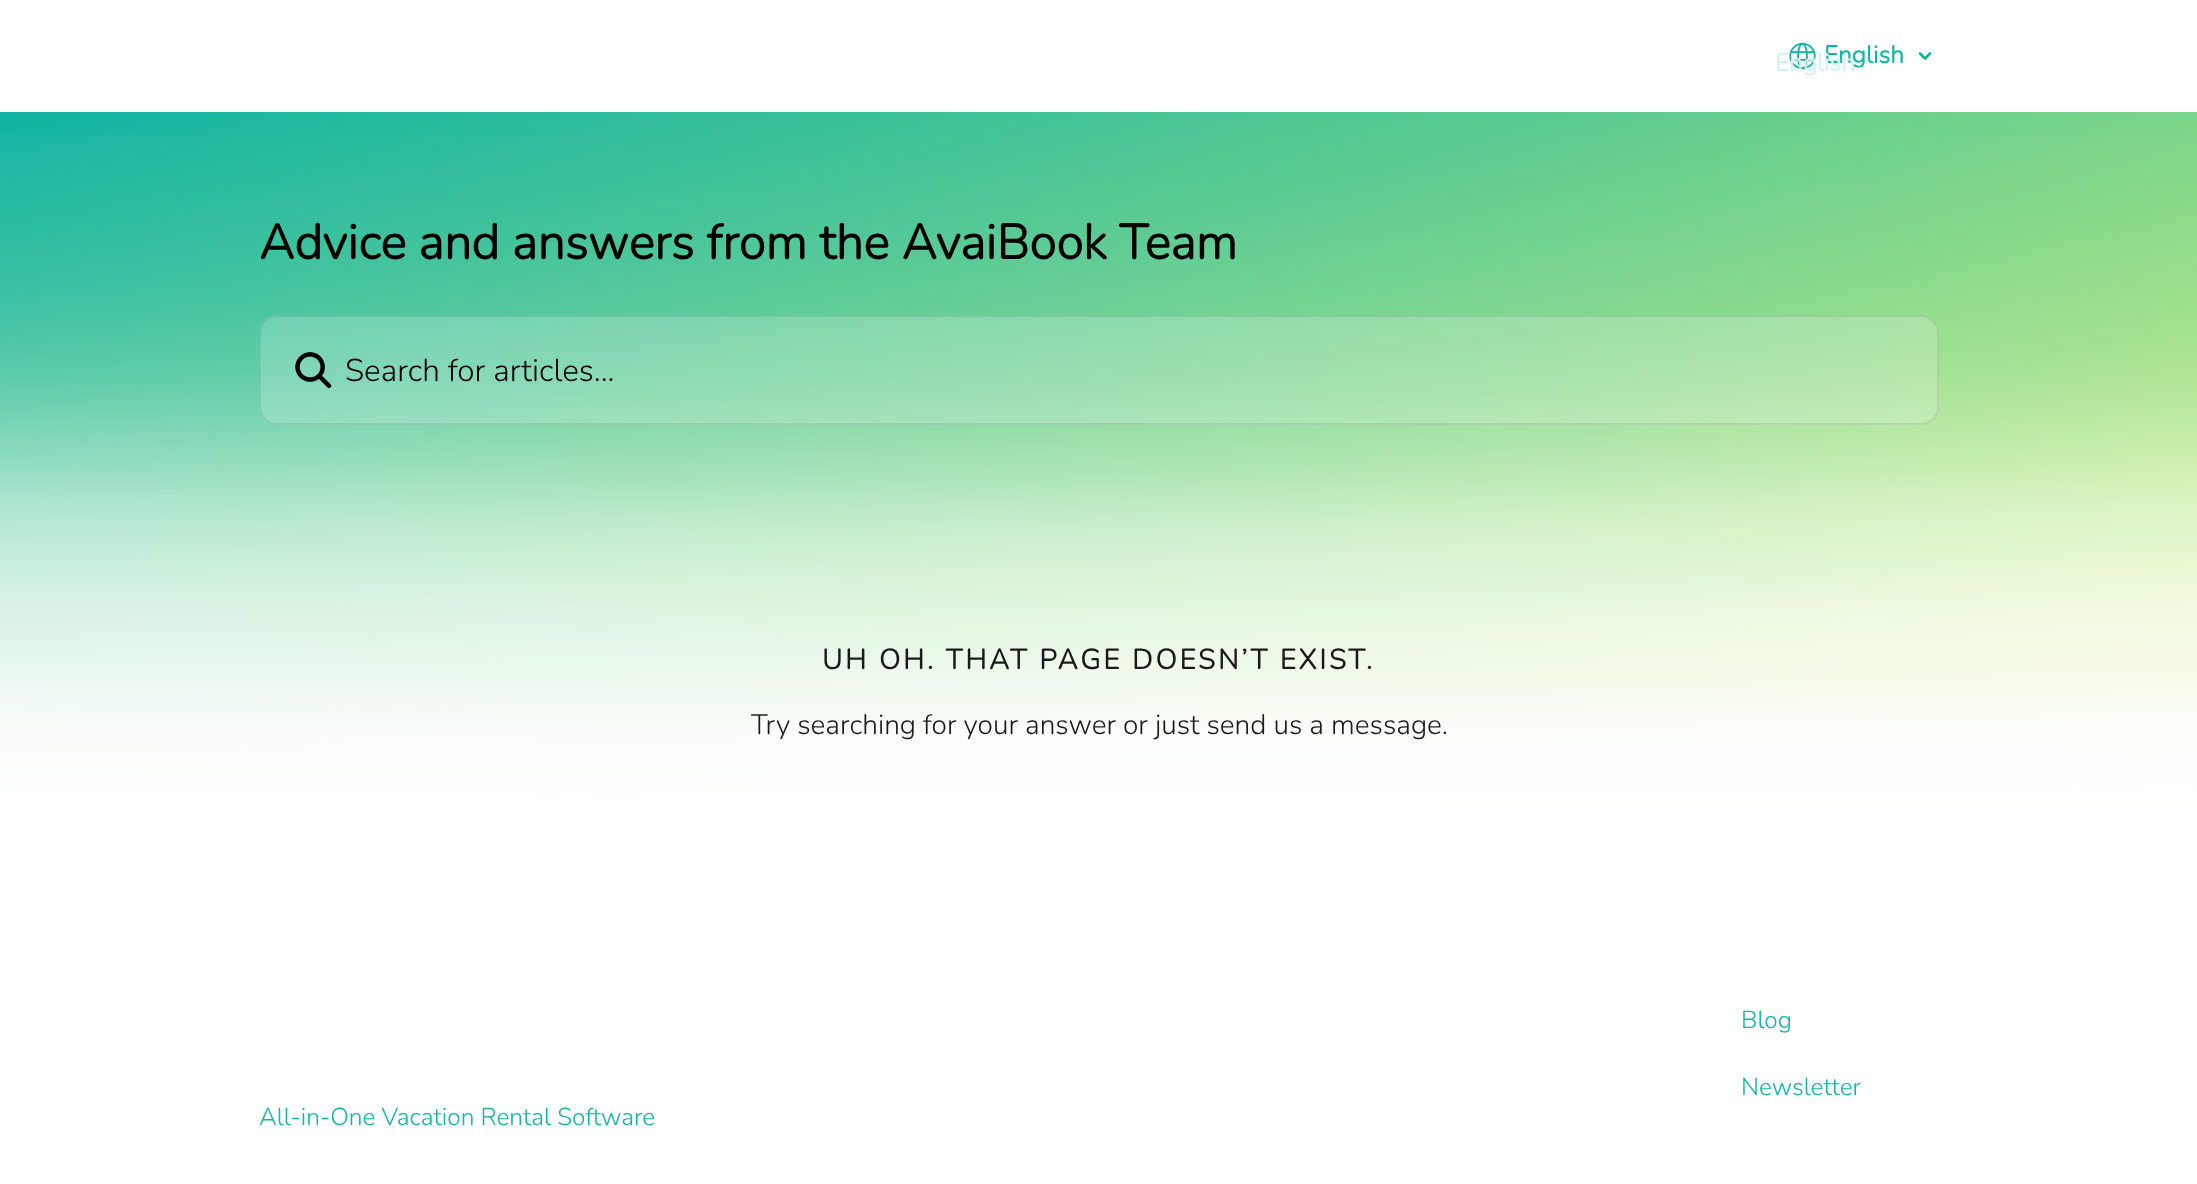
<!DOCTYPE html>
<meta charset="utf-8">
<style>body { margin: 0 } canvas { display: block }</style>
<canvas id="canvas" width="2197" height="1184"></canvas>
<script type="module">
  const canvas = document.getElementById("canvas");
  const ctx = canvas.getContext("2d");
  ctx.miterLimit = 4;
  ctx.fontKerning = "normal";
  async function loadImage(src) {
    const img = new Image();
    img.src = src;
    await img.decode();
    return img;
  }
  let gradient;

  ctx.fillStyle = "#ffffff";
  ctx.fillRect(0, 0, 2197, 1184);
  ctx.drawImage(await loadImage("img1.png"), 1789, 42, 27, 28);
  ctx.font = "bold 24.5px Nunito";
  ctx.fillStyle = "#11b6a5";
  ctx.fillText("English", 1824, 63);
  ctx.fillStyle = "#d6f2ef";
  ctx.fillText("English", 1775, 71);
  ctx.beginPath();
  ctx.moveTo(1920, 53.5);
  ctx.lineTo(1925, 58.5);
  ctx.lineTo(1930, 53.5);
  ctx.strokeStyle = "#11b4a3";
  ctx.lineWidth = 2.6;
  ctx.lineCap = "round";
  ctx.lineJoin = "round";
  ctx.stroke();
  gradient = ctx.createLinearGradient(892, -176, 1306, 1108);
  gradient.addColorStop(0, "#11b4a3");
  gradient.addColorStop(1, "#e1f56e");
  ctx.fillStyle = gradient;
  ctx.fillRect(0, 112, 2197, 698);
  gradient = ctx.createRadialGradient(1099, 1157.6, 0, 1099, 1157.6, 7328);
  gradient.addColorStop(0, "rgba(255, 255, 255, 0)");
  gradient.addColorStop(0.12, "rgba(255, 255, 255, 0.01)");
  gradient.addColorStop(0.21, "rgba(255, 255, 255, 0.04)");
  gradient.addColorStop(0.29, "rgba(255, 255, 255, 0.07)");
  gradient.addColorStop(0.35, "rgba(255, 255, 255, 0.12)");
  gradient.addColorStop(0.4, "rgba(255, 255, 255, 0.18)");
  gradient.addColorStop(0.44, "rgba(255, 255, 255, 0.25)");
  gradient.addColorStop(0.48, "rgba(255, 255, 255, 0.33)");
  gradient.addColorStop(0.52, "rgba(255, 255, 255, 0.41)");
  gradient.addColorStop(0.55, "rgba(255, 255, 255, 0.49)");
  gradient.addColorStop(0.59, "rgba(255, 255, 255, 0.58)");
  gradient.addColorStop(0.65, "rgba(255, 255, 255, 0.67)");
  gradient.addColorStop(0.71, "rgba(255, 255, 255, 0.76)");
  gradient.addColorStop(0.79, "rgba(255, 255, 255, 0.84)");
  gradient.addColorStop(0.88, "rgba(255, 255, 255, 0.96)");
  gradient.addColorStop(1, "#ffffff");
  ctx.fillStyle = gradient;
  ctx.beginPath();
  ctx.rect(0, 135, 2197, 675);
  ctx.save();
  ctx.clip();
  ctx.scale(1, 709 / 7328);
  ctx.fillRect(0, 0, 2197, 12238);
  ctx.restore();
  ctx.font = "bold 49px Nunito";
  ctx.fillStyle = "#000000";
  ctx.fillText("Advice and answers from the AvaiBook Team", 259, 259);
  ctx.fillStyle = "rgba(255, 255, 255, 0.2)";
  ctx.beginPath();
  ctx.roundRect(259, 315, 1680, 110, 18);
  ctx.fill();
  ctx.beginPath();
  ctx.roundRect(260, 316, 1678, 108, 17);
  ctx.strokeStyle = "rgba(0, 0, 0, 0.08)";
  ctx.lineWidth = 2;
  ctx.lineJoin = "miter";
  ctx.stroke();
  ctx.drawImage(await loadImage("img2.png"), 295, 352, 37, 37);
  ctx.font = "300 31.5px Nunito";
  ctx.fillStyle = "#000000";
  ctx.fillText("Search for articles...", 345, 381);
  ctx.letterSpacing = "2.8px";
  ctx.font = "bold 28px Nunito";
  ctx.fillStyle = "#1a1a1a";
  ctx.fillText("UH OH. THAT PAGE DOESN’T EXIST.", 822, 669);
  ctx.letterSpacing = "0px";
  ctx.font = "300 28px Nunito";
  ctx.fillText("Try searching for your answer or just send us a message.", 751, 734);
  ctx.font = "300 24.5px Nunito";
  ctx.fillStyle = "#11b6a5";
  ctx.fillText("Blog", 1741, 1028);
  ctx.fillText("Newsletter", 1741, 1095);
  ctx.fillText("All-in-One Vacation Rental Software", 259, 1125);
</script>
